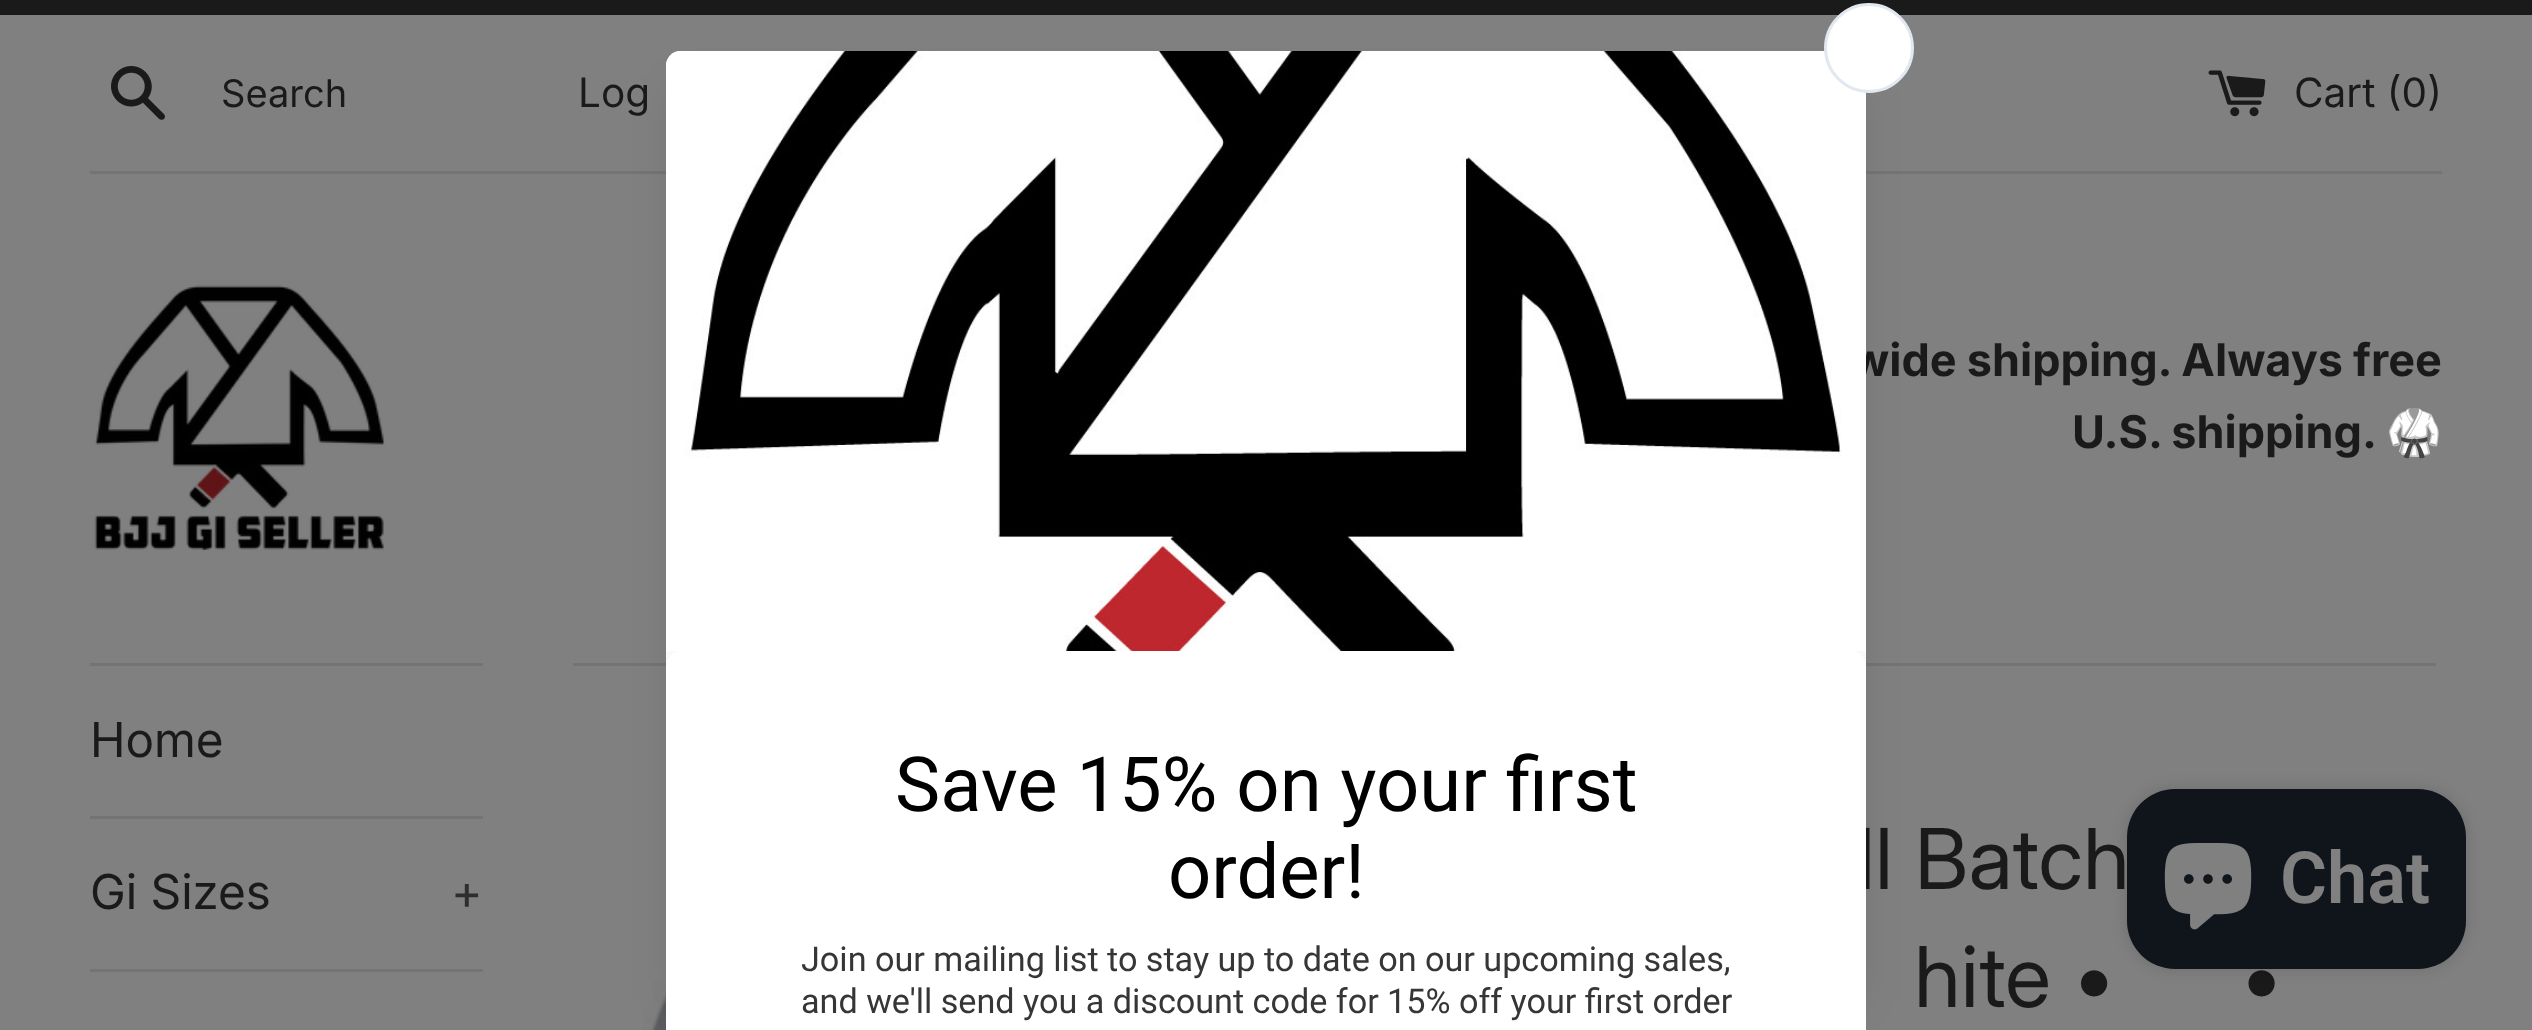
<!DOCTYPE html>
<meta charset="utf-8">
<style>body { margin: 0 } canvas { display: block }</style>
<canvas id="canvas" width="2532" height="1030"></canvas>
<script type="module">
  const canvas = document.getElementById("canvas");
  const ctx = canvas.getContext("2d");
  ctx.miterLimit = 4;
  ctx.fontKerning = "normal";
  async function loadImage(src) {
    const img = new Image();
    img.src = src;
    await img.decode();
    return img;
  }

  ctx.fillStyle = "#808080";
  ctx.fillRect(0, 0, 2532, 1030);
  ctx.fillStyle = "#1a1a1a";
  ctx.fillRect(0, 0, 2532, 15);
  ctx.drawImage(await loadImage("img1.png"), 111, 66, 54, 54);
  ctx.font = "38px Inter";
  ctx.fillText("Search", 221, 107);
  ctx.font = "40.5px Inter";
  ctx.fillText("Log", 578, 107);
  ctx.drawImage(await loadImage("img2.png"), 2208, 70, 58, 47);
  ctx.fillText("Cart (0)", 2294, 107);
  ctx.fillStyle = "#747474";
  ctx.fillRect(90, 171, 2352, 3);
  ctx.drawImage(await loadImage("img3.png"), 94, 285, 291, 266);
  ctx.wordSpacing = "-0.5px";
  ctx.font = "bold 45px Inter";
  ctx.fillStyle = "#1a1a1a";
  ctx.fillText("wide shipping. Always free", 1851, 376);
  ctx.wordSpacing = "-1px";
  ctx.fillText("U.S. shipping.", 2072, 448);
  ctx.wordSpacing = "0px";
  ctx.font = "45px Noto Color Emoji";
  ctx.fillText("🥋", 2386, 448);
  ctx.fillStyle = "#747474";
  ctx.fillRect(90, 663, 393, 3);
  ctx.fillRect(90, 816, 393, 3);
  ctx.font = "48px 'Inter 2'";
  ctx.fillStyle = "#1a1a1a";
  ctx.fillText("Home", 90, 757);
  ctx.fillStyle = "#747474";
  ctx.fillRect(90, 969, 393, 3);
  ctx.fillStyle = "#1a1a1a";
  ctx.fillText("Gi Sizes", 90, 909);
  ctx.fillStyle = "#2e2e2e";
  ctx.fillText("+", 451, 909);
  ctx.fillStyle = "#747474";
  ctx.fillRect(573, 663, 1863, 3);
  ctx.drawImage(await loadImage("img4.png"), 643, 813, 23, 217);
  ctx.drawImage(await loadImage("img5.png"), 649, 815, 17, 215);
  ctx.font = "84px 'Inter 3'";
  ctx.fillStyle = "#1a1a1a";
  ctx.fillText("ll Batch", 1857, 889);
  ctx.fillText("hite •", 1914, 1007);
  ctx.fillText("•", 2240, 1007);
  ctx.fillStyle = "rgba(0, 0, 0, 0.1)";
  ctx.filter = "blur(22.5px)";
  ctx.beginPath();
  ctx.roundRect(675, 90, 1182, 912, 6);
  ctx.fill();
  ctx.filter = "none";
  ctx.fillStyle = "#ffffff";
  ctx.beginPath();
  ctx.roundRect(666, 51, 1200, 930, 15);
  ctx.fill();
  ctx.drawImage(await loadImage("img6.png"), 666, 51, 1200, 600);
  ctx.beginPath();
  ctx.arc(1869, 48, 43.5, 0, Math.PI * 2);
  ctx.fill();
  ctx.strokeStyle = "#e2e8f0";
  ctx.lineWidth = 3;
  ctx.stroke();
  ctx.save();
  ctx.beginPath();
  ctx.rect(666, 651, 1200, 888);
  ctx.clip();
  ctx.fillStyle = "rgba(0, 0, 0, 0.12)";
  ctx.filter = "blur(30px)";
  ctx.beginPath();
  ctx.roundRect(675, 660, 1182, 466, 6);
  ctx.fill();
  ctx.filter = "none";
  ctx.restore();
  ctx.beginPath();
  ctx.roundRect(666, 651, 1200, 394, 15);
  ctx.fill();
  ctx.font = "76px Roboto";
  ctx.fillStyle = "#000000";
  ctx.fillText("Save 15% on your first", 895, 811);
  ctx.fillText("order!", 1168, 898);
  ctx.wordSpacing = "-0.1px";
  ctx.font = "34.2px Roboto";
  ctx.fillStyle = "#363636";
  ctx.fillText("Join our mailing list to stay up to date on our upcoming sales,", 801, 971);
  ctx.fillText("and we'll send you a discount code for 15% off your first order", 801, 1013);
  ctx.fillStyle = "rgba(0, 0, 0, 0.15)";
  ctx.filter = "blur(7.5px)";
  ctx.beginPath();
  ctx.roundRect(2127, 789, 339, 180, 48);
  ctx.fill();
  ctx.filter = "none";
  ctx.fillStyle = "#10151b";
  ctx.beginPath();
  ctx.roundRect(2127, 789, 339, 180, 48);
  ctx.fill();
  ctx.drawImage(await loadImage("img7.png"), 2164, 843, 88, 87);
  ctx.wordSpacing = "0px";
  ctx.font = "600 72px Roboto";
  ctx.fillStyle = "#808080";
  ctx.fillText("Chat", 2280, 903);
</script>
